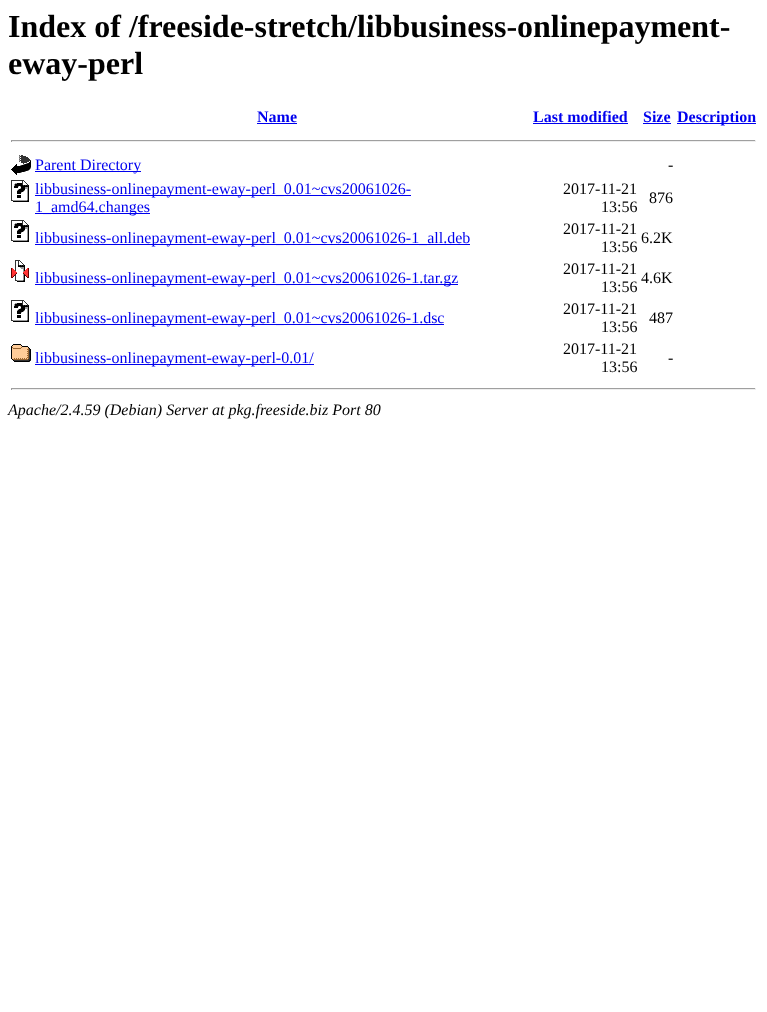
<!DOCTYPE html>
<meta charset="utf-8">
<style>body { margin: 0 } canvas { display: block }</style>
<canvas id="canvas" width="767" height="1012"></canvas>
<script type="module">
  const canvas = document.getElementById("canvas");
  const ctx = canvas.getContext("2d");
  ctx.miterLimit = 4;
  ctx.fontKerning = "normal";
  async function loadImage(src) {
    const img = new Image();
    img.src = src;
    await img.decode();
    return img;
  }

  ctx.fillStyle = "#ffffff";
  ctx.fillRect(0, 0, 767, 1012);
  ctx.font = "bold 32px Liberation Serif";
  ctx.fillStyle = "#000000";
  ctx.fillText("Index of /freeside-stretch/libbusiness-onlinepayment-", 8, 37);
  ctx.fillText("eway-perl", 8, 74);
  ctx.font = "bold 16px Liberation Serif";
  ctx.fillStyle = "#0000ee";
  ctx.fillText("Name", 257, 122);
  ctx.fillRect(257, 123, 40, 1);
  ctx.fillText("Last modified", 533, 122);
  ctx.fillRect(533, 123, 95, 1);
  ctx.fillText("Size", 643, 122);
  ctx.fillRect(643, 123, 28, 1);
  ctx.fillRect(677, 123, 79, 1);
  ctx.fillText("Description", 677, 122);
  ctx.fillStyle = "#9f9f9f";
  ctx.fillRect(11, 140, 745, 1);
  ctx.fillStyle = "#eeeeee";
  ctx.fillRect(755, 140, 1, 2);
  ctx.fillRect(11, 141, 745, 1);
  ctx.fillStyle = "#9f9f9f";
  ctx.fillRect(11, 140, 1, 2);
  ctx.drawImage(await loadImage("img1.png"), 11, 155, 20, 20);
  ctx.fillStyle = "#0000ee";
  ctx.fillRect(35, 171, 106, 1);
  ctx.font = "16px Liberation Serif";
  ctx.fillText("Parent Directory", 35, 170);
  ctx.fillStyle = "#000000";
  ctx.fillText("-", 668, 170);
  ctx.drawImage(await loadImage("img2.png"), 11, 180, 18, 22);
  ctx.fillStyle = "#0000ee";
  ctx.fillRect(35, 195, 376, 1);
  ctx.fillText("libbusiness-onlinepayment-eway-perl_0.01~cvs20061026-", 35, 194);
  ctx.fillRect(35, 213, 115, 1);
  ctx.fillText("1_amd64.changes", 35, 212);
  ctx.fillStyle = "#000000";
  ctx.fillText("2017-11-21", 563, 194);
  ctx.fillText("13:56", 601, 212);
  ctx.fillText("876", 649, 203);
  ctx.drawImage(await loadImage("img2.png"), 11, 220, 18, 22);
  ctx.fillStyle = "#0000ee";
  ctx.fillRect(35, 244, 435, 1);
  ctx.fillText("libbusiness-onlinepayment-eway-perl_0.01~cvs20061026-1_all.deb", 35, 243);
  ctx.fillStyle = "#000000";
  ctx.fillText("2017-11-21", 563, 234);
  ctx.fillText("13:56", 601, 252);
  ctx.fillText("6.2K", 641, 243);
  ctx.drawImage(await loadImage("img3.png"), 11, 260, 18, 22);
  ctx.fillStyle = "#0000ee";
  ctx.fillRect(35, 284, 423, 1);
  ctx.fillText("libbusiness-onlinepayment-eway-perl_0.01~cvs20061026-1.tar.gz", 35, 283);
  ctx.fillStyle = "#000000";
  ctx.fillText("2017-11-21", 563, 274);
  ctx.fillText("13:56", 601, 292);
  ctx.fillText("4.6K", 641, 283);
  ctx.drawImage(await loadImage("img2.png"), 11, 300, 18, 22);
  ctx.fillStyle = "#0000ee";
  ctx.fillRect(35, 324, 409, 1);
  ctx.fillText("libbusiness-onlinepayment-eway-perl_0.01~cvs20061026-1.dsc", 35, 323);
  ctx.fillStyle = "#000000";
  ctx.fillText("2017-11-21", 563, 314);
  ctx.fillText("13:56", 601, 332);
  ctx.fillText("487", 649, 323);
  ctx.drawImage(await loadImage("img4.png"), 11, 344, 20, 18);
  ctx.fillStyle = "#0000ee";
  ctx.fillRect(35, 364, 279, 1);
  ctx.fillText("libbusiness-onlinepayment-eway-perl-0.01/", 35, 363);
  ctx.fillStyle = "#000000";
  ctx.fillText("2017-11-21", 563, 354);
  ctx.fillText("13:56", 601, 372);
  ctx.fillText("-", 668, 363);
  ctx.fillStyle = "#9f9f9f";
  ctx.fillRect(11, 388, 745, 1);
  ctx.fillStyle = "#eeeeee";
  ctx.fillRect(755, 388, 1, 2);
  ctx.fillRect(11, 389, 745, 1);
  ctx.fillStyle = "#9f9f9f";
  ctx.fillRect(11, 388, 1, 2);
  ctx.font = "italic 16px Liberation Serif";
  ctx.fillStyle = "#000000";
  ctx.fillText("Apache/2.4.59 (Debian) Server at pkg.freeside.biz Port 80", 8, 415);
</script>
